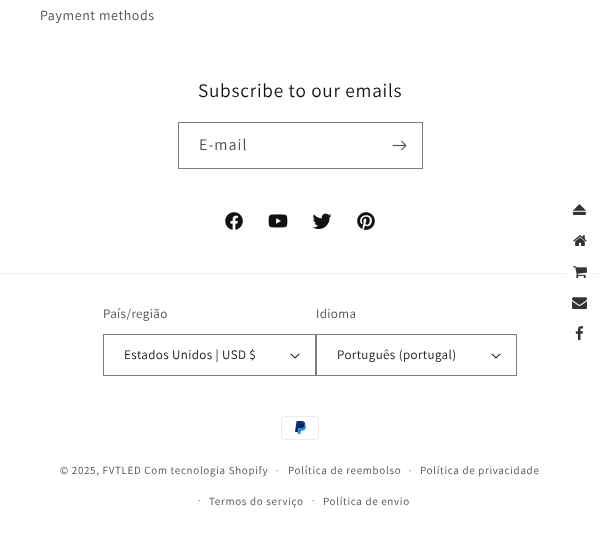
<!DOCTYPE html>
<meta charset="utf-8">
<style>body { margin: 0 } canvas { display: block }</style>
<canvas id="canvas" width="600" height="543"></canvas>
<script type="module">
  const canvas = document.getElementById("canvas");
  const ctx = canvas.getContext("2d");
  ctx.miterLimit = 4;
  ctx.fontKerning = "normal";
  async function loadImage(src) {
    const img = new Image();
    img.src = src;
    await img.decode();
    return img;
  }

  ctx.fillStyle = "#ffffff";
  ctx.fillRect(0, 0, 600, 543);
  ctx.letterSpacing = "0.6px";
  ctx.font = "14px Assistant";
  ctx.fillStyle = "#4d4d4d";
  ctx.fillText("Payment methods", 40, 20);
  ctx.letterSpacing = "0.75px";
  ctx.font = "19.25px Assistant";
  ctx.fillStyle = "#121212";
  ctx.fillText("Subscribe to our emails", 198, 97);
  ctx.strokeStyle = "#7d7d7d";
  ctx.strokeRect(178.5, 122.5, 244, 46);
  ctx.letterSpacing = "1px";
  ctx.font = "16px Assistant";
  ctx.fillStyle = "#4d4d4d";
  ctx.fillText("E-mail", 199, 150);
  ctx.drawImage(await loadImage("img1.png"), 392, 140, 15, 11);
  ctx.drawImage(await loadImage("img2.png"), 225, 212, 18, 18);
  ctx.drawImage(await loadImage("img3.png"), 268, 214, 20, 14);
  ctx.drawImage(await loadImage("img4.png"), 312, 213, 20, 16);
  ctx.drawImage(await loadImage("img5.png"), 357, 212, 18, 18);
  ctx.fillStyle = "#ececec";
  ctx.fillRect(0, 273, 600, 1);
  ctx.fillStyle = "#fbfbfb";
  ctx.fillRect(565, 273, 30, 1);
  ctx.letterSpacing = "0.4px";
  ctx.font = "13px Assistant";
  ctx.fillStyle = "#4d4d4d";
  ctx.fillText("País/região", 103, 318);
  ctx.drawImage(await loadImage("img6.png"), 290, 353, 10, 6);
  ctx.strokeRect(103.5, 334.5, 212, 41);
  ctx.fillStyle = "#121212";
  ctx.fillText("Estados Unidos | USD $", 124, 359);
  ctx.fillStyle = "#4d4d4d";
  ctx.fillText("Idioma", 316, 318);
  ctx.drawImage(await loadImage("img6.png"), 491, 353, 10, 6);
  ctx.strokeRect(316.5, 334.5, 200, 41);
  ctx.fillStyle = "#121212";
  ctx.fillText("Português (portugal)", 337, 359);
  ctx.drawImage(await loadImage("img7.png"), 281, 416, 38, 24);
  ctx.letterSpacing = "0.7px";
  ctx.font = "11px Assistant";
  ctx.fillStyle = "#4d4d4d";
  ctx.fillText("© 2025, FVTLED Com tecnologia Shopify", 60, 474);
  ctx.font = "10px Assistant";
  ctx.fillText("·", 276, 474);
  ctx.font = "11px Assistant";
  ctx.fillText("Política de reembolso", 288, 474);
  ctx.font = "10px Assistant";
  ctx.fillText("·", 409, 474);
  ctx.font = "11px Assistant";
  ctx.fillText("Política de privacidade", 420, 474);
  ctx.font = "10px Assistant";
  ctx.fillText("·", 198, 504);
  ctx.font = "11px Assistant";
  ctx.fillText("Termos do serviço", 209, 505);
  ctx.font = "10px Assistant";
  ctx.fillText("·", 312, 504);
  ctx.font = "11px Assistant";
  ctx.fillText("Política de envio", 323, 505);
  ctx.drawImage(await loadImage("img8.png"), 573, 204, 13, 11);
  ctx.drawImage(await loadImage("img9.png"), 573, 235, 14, 11);
  ctx.drawImage(await loadImage("img10.png"), 573, 266, 14, 12);
  ctx.drawImage(await loadImage("img11.png"), 572, 297, 15, 13);
  ctx.drawImage(await loadImage("img12.png"), 575, 326, 9, 15);
</script>
